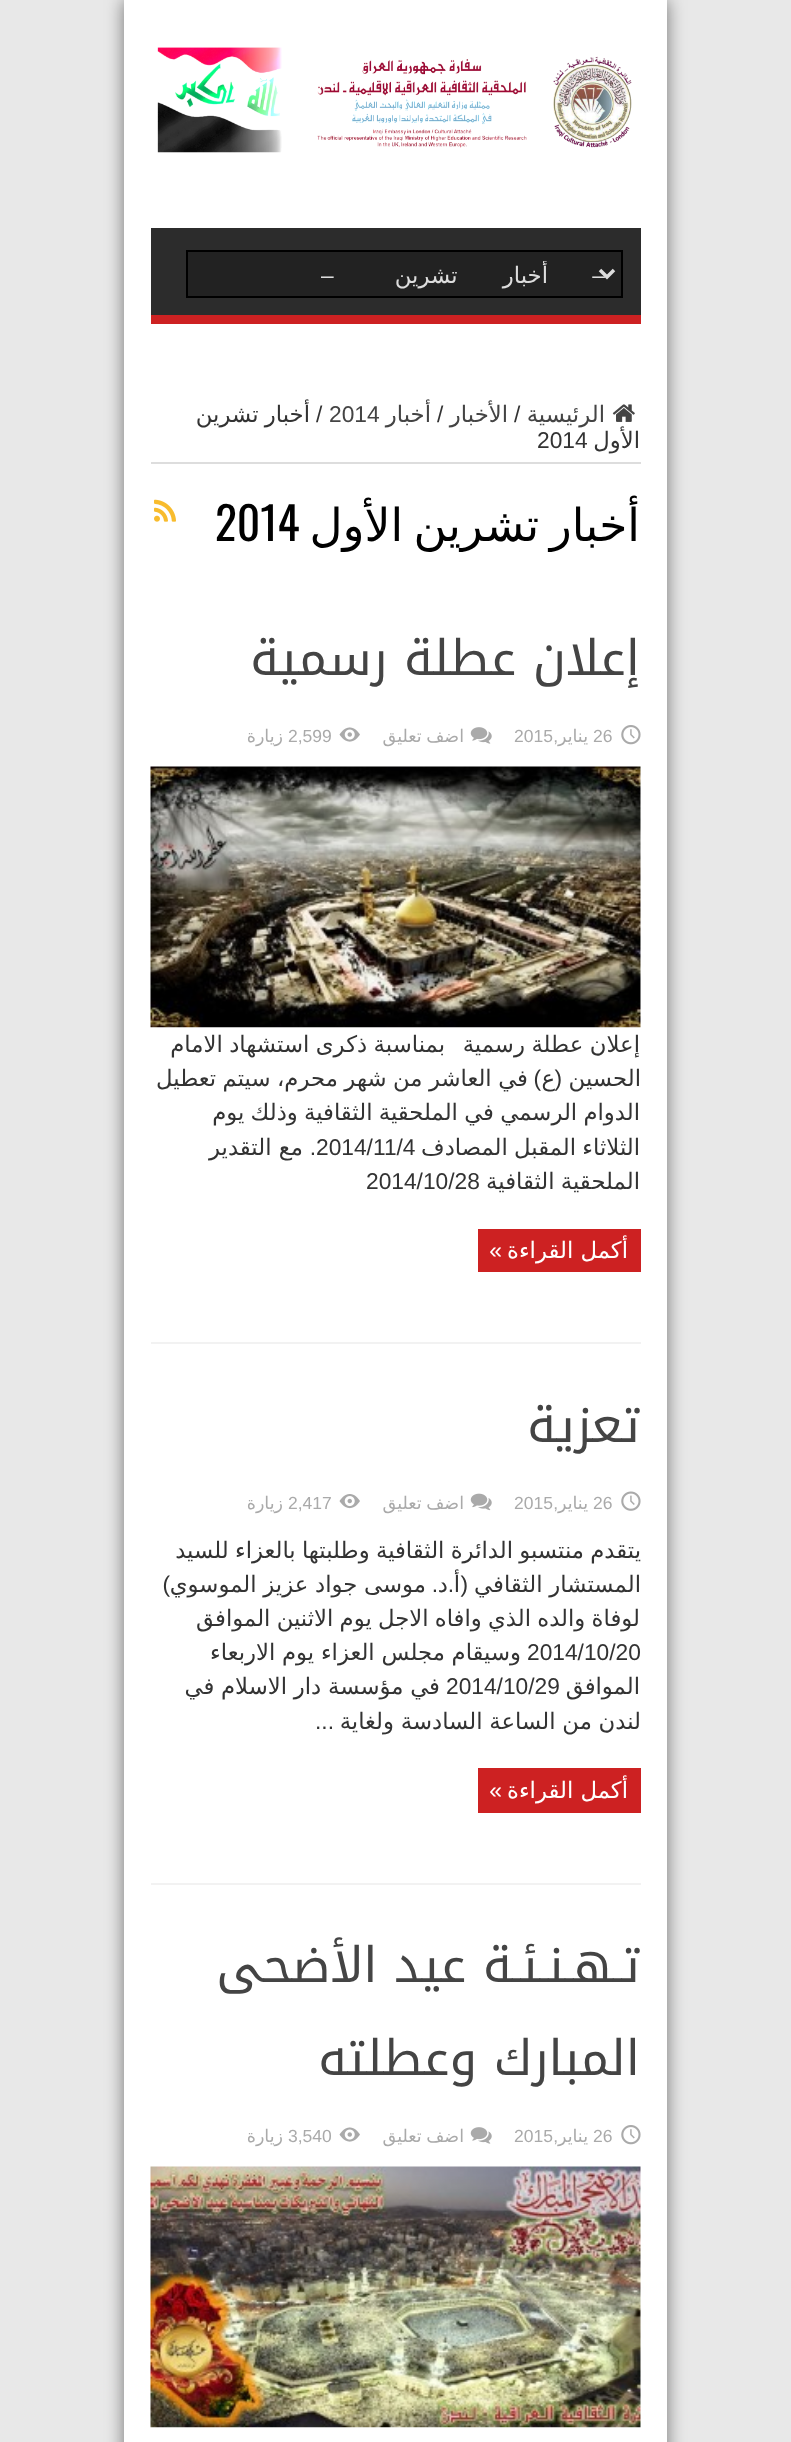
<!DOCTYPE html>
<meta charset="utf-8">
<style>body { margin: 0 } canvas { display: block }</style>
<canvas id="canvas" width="791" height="2442"></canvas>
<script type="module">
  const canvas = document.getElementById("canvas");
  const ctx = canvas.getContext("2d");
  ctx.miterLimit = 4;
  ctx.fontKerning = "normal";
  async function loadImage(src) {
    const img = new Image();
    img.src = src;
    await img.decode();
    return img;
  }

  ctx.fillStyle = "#e8e8e8";
  ctx.fillRect(0, 0, 791, 2442);
  ctx.fillStyle = "rgba(0, 0, 0, 0.5)";
  ctx.filter = "blur(9px)";
  ctx.beginPath();
  ctx.rect(124, 0, 543, 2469);
  ctx.fill();
  ctx.filter = "none";
  ctx.fillStyle = "#ffffff";
  ctx.fillRect(124, 0, 543, 2442);
  ctx.drawImage(await loadImage("img1.png"), 157, 47, 475, 106);
  ctx.fillStyle = "#2c2c2c";
  ctx.fillRect(151, 228, 490, 87);
  ctx.fillStyle = "#cd2122";
  ctx.fillRect(151, 315, 490, 9);
  ctx.fillStyle = "#222222";
  ctx.beginPath();
  ctx.rect(187, 251, 435, 46);
  ctx.fill();
  ctx.strokeStyle = "#000000";
  ctx.lineWidth = 2;
  ctx.stroke();
  ctx.beginPath();
  ctx.moveTo(600, 270);
  ctx.lineTo(607, 277);
  ctx.lineTo(614, 270);
  ctx.strokeStyle = "#dddddd";
  ctx.lineWidth = 3.5;
  ctx.stroke();
  ctx.direction = "rtl";
  ctx.font = "22.75px Liberation Sans";
  ctx.fillStyle = "#dddddd";
  ctx.fillText("–", 605, 283);
  ctx.save();
  ctx.beginPath();
  ctx.rect(224, 261, 382, 30);
  ctx.clip();
  ctx.wordSpacing = "38px";
  ctx.font = "22.75px DejaVu Sans";
  ctx.fillText("أخبار تشرين", 548, 283);
  ctx.restore();
  ctx.direction = "ltr";
  ctx.fillText("–", 321, 283);
  ctx.fillRect(151, 462, 490, 2);
  ctx.drawImage(await loadImage("img2.png"), 612, 404, 23, 18);
  ctx.direction = "rtl";
  ctx.font = "22.75px DejaVu Sans";
  ctx.fillStyle = "#444444";
  ctx.fillText("الرئيسية", 605, 422);
  ctx.direction = "ltr";
  ctx.font = "22.75px Liberation Sans";
  ctx.fillStyle = "#333333";
  ctx.fillText("/", 514, 422);
  ctx.direction = "rtl";
  ctx.font = "22.75px DejaVu Sans";
  ctx.fillStyle = "#444444";
  ctx.fillText("الأخبار", 508, 422);
  ctx.direction = "ltr";
  ctx.font = "22.75px Liberation Sans";
  ctx.fillStyle = "#333333";
  ctx.fillText("/", 437, 422);
  ctx.direction = "rtl";
  ctx.font = "22.75px DejaVu Sans";
  ctx.fillStyle = "#444444";
  ctx.fillText("أخبار", 431, 422);
  ctx.direction = "ltr";
  ctx.font = "22.75px Liberation Sans";
  ctx.fillText("2014", 329, 422);
  ctx.fillStyle = "#333333";
  ctx.fillText("/", 316, 422);
  ctx.wordSpacing = "-1px";
  ctx.direction = "rtl";
  ctx.font = "22.75px DejaVu Sans";
  ctx.fillText("أخبار تشرين", 310, 422);
  ctx.wordSpacing = "0px";
  ctx.fillText("الأول", 640, 448);
  ctx.direction = "ltr";
  ctx.font = "22.75px Liberation Sans";
  ctx.fillText("2014", 537, 448);
  ctx.save();
  ctx.beginPath();
  ctx.rect(151, 481, 490, 97);
  ctx.clip();
  ctx.wordSpacing = "-4px";
  ctx.direction = "rtl";
  ctx.font = "45.5px DejaVu Sans";
  ctx.fillStyle = "#000000";
  ctx.fillText("أخبار تشرين الأول", 640, 541);
  ctx.restore();
  ctx.font = "45.5px Oswald";
  ctx.fillStyle = "#000000";
  ctx.fillText("2014", 215, 541);
  ctx.drawImage(await loadImage("img3.png"), 154, 499, 22, 23);
  ctx.fillStyle = "#f2f2f2";
  ctx.fillRect(151, 1342, 490, 2);
  ctx.direction = "rtl";
  ctx.font = "49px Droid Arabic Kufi";
  ctx.fillStyle = "#444444";
  ctx.fillText("إعلان عطلة رسمية", 640, 675);
  ctx.drawImage(await loadImage("img4.png"), 621, 725, 20, 20);
  ctx.direction = "ltr";
  ctx.font = "17.5px Liberation Sans";
  ctx.fillStyle = "#aaaaaa";
  ctx.fillText("26", 593, 742);
  ctx.direction = "rtl";
  ctx.font = "17.5px DejaVu Sans";
  ctx.fillText("يناير", 588, 742);
  ctx.font = "17.5px Liberation Sans";
  ctx.fillText(",", 558, 742);
  ctx.direction = "ltr";
  ctx.fillText("2015", 514, 742);
  ctx.drawImage(await loadImage("img5.png"), 470, 727, 22, 17);
  ctx.wordSpacing = "-1px";
  ctx.direction = "rtl";
  ctx.font = "17.5px DejaVu Sans";
  ctx.fillText("اضف تعليق", 464, 742);
  ctx.drawImage(await loadImage("img6.png"), 339, 727, 21, 15);
  ctx.wordSpacing = "0px";
  ctx.direction = "ltr";
  ctx.font = "17.5px Liberation Sans";
  ctx.fillText("2,599", 288, 742);
  ctx.direction = "rtl";
  ctx.font = "17.5px DejaVu Sans";
  ctx.fillText("زيارة", 283, 742);
  ctx.drawImage(await loadImage("img7.png"), 150, 766, 491, 262);
  ctx.wordSpacing = "-0.75px";
  ctx.font = "22.75px DejaVu Sans";
  ctx.fillStyle = "#333333";
  ctx.fillText("إعلان عطلة رسمية", 640, 1052);
  ctx.fillText("بمناسبة ذكرى استشهاد الامام", 445, 1052);
  ctx.wordSpacing = "0px";
  ctx.fillText("الحسين", 641, 1086);
  ctx.font = "22.75px Liberation Sans";
  ctx.fillText("(", 562, 1086);
  ctx.font = "22.75px DejaVu Sans";
  ctx.fillText("ع", 555, 1086);
  ctx.font = "22.75px Liberation Sans";
  ctx.fillText(")", 541, 1086);
  ctx.wordSpacing = "-0.75px";
  ctx.font = "22.75px DejaVu Sans";
  ctx.fillText("في العاشر من شهر محرم، سيتم تعطيل", 528, 1086);
  ctx.wordSpacing = "-1px";
  ctx.fillText("الدوام الرسمي في الملحقية الثقافية وذلك يوم", 640, 1120);
  ctx.fillText("الثلاثاء المقبل المصادف", 640, 1155);
  ctx.wordSpacing = "0px";
  ctx.direction = "ltr";
  ctx.font = "22.75px Liberation Sans";
  ctx.fillText("2014/11/4", 316, 1155);
  ctx.direction = "rtl";
  ctx.fillText(".", 316, 1155);
  ctx.font = "22.75px DejaVu Sans";
  ctx.fillText("مع التقدير", 303, 1155);
  ctx.wordSpacing = "-1px";
  ctx.fillText("الملحقية الثقافية", 640, 1189);
  ctx.wordSpacing = "0px";
  ctx.direction = "ltr";
  ctx.font = "22.75px Liberation Sans";
  ctx.fillText("2014/10/28", 366, 1189);
  ctx.fillStyle = "#cd2122";
  ctx.fillRect(478, 1229, 163, 43);
  ctx.direction = "rtl";
  ctx.font = "22.75px DejaVu Sans";
  ctx.fillStyle = "#ffffff";
  ctx.fillText("أكمل القراءة", 628, 1258);
  ctx.font = "22.75px Liberation Sans";
  ctx.fillText("»", 502, 1258);
  ctx.fillStyle = "#f2f2f2";
  ctx.fillRect(151, 1883, 490, 2);
  ctx.font = "49px Droid Arabic Kufi";
  ctx.fillStyle = "#444444";
  ctx.fillText("تعزية", 640, 1442);
  ctx.drawImage(await loadImage("img8.png"), 621, 1491, 20, 20);
  ctx.direction = "ltr";
  ctx.font = "17.5px Liberation Sans";
  ctx.fillStyle = "#aaaaaa";
  ctx.fillText("26", 593, 1509);
  ctx.direction = "rtl";
  ctx.font = "17.5px DejaVu Sans";
  ctx.fillText("يناير", 588, 1509);
  ctx.font = "17.5px Liberation Sans";
  ctx.fillText(",", 558, 1509);
  ctx.direction = "ltr";
  ctx.fillText("2015", 514, 1509);
  ctx.drawImage(await loadImage("img9.png"), 470, 1493, 22, 18);
  ctx.wordSpacing = "-1px";
  ctx.direction = "rtl";
  ctx.font = "17.5px DejaVu Sans";
  ctx.fillText("اضف تعليق", 464, 1509);
  ctx.drawImage(await loadImage("img10.png"), 339, 1494, 21, 15);
  ctx.wordSpacing = "0px";
  ctx.direction = "ltr";
  ctx.font = "17.5px Liberation Sans";
  ctx.fillText("2,417", 288, 1509);
  ctx.direction = "rtl";
  ctx.font = "17.5px DejaVu Sans";
  ctx.fillText("زيارة", 283, 1509);
  ctx.wordSpacing = "-1px";
  ctx.font = "22.75px DejaVu Sans";
  ctx.fillStyle = "#333333";
  ctx.fillText("يتقدم منتسبو الدائرة الثقافية وطلبتها بالعزاء للسيد", 641, 1558);
  ctx.wordSpacing = "-0.5px";
  ctx.fillText("المستشار الثقافي", 641, 1592);
  ctx.wordSpacing = "0px";
  ctx.font = "22.75px Liberation Sans";
  ctx.fillText("(", 468, 1592);
  ctx.font = "22.75px DejaVu Sans";
  ctx.fillText("أ", 460, 1592);
  ctx.font = "22.75px Liberation Sans";
  ctx.fillText(".", 454, 1592);
  ctx.font = "22.75px DejaVu Sans";
  ctx.fillText("د", 448, 1592);
  ctx.font = "22.75px Liberation Sans";
  ctx.fillText(".", 438, 1592);
  ctx.wordSpacing = "-0.5px";
  ctx.font = "22.75px DejaVu Sans";
  ctx.fillText("موسى جواد عزيز الموسوي", 426, 1592);
  ctx.wordSpacing = "0px";
  ctx.font = "22.75px Liberation Sans";
  ctx.fillText(")", 170, 1592);
  ctx.wordSpacing = "-1px";
  ctx.font = "22.75px DejaVu Sans";
  ctx.fillText("لوفاة والده الذي وافاه الاجل يوم الاثنين الموافق", 640, 1626);
  ctx.wordSpacing = "0px";
  ctx.direction = "ltr";
  ctx.font = "22.75px Liberation Sans";
  ctx.fillText("2014/10/20", 527, 1660);
  ctx.wordSpacing = "-0.5px";
  ctx.direction = "rtl";
  ctx.font = "22.75px DejaVu Sans";
  ctx.fillText("وسيقام مجلس العزاء يوم الاربعاء", 521, 1660);
  ctx.wordSpacing = "0px";
  ctx.fillText("الموافق", 640, 1694);
  ctx.direction = "ltr";
  ctx.font = "22.75px Liberation Sans";
  ctx.fillText("2014/10/29", 446, 1694);
  ctx.wordSpacing = "-0.5px";
  ctx.direction = "rtl";
  ctx.font = "22.75px DejaVu Sans";
  ctx.fillText("في مؤسسة دار الاسلام في", 440, 1694);
  ctx.fillText("لندن من الساعة السادسة ولغاية", 641, 1729);
  ctx.wordSpacing = "0px";
  ctx.font = "22.75px Liberation Sans";
  ctx.fillText("...", 334, 1729);
  ctx.fillStyle = "#cd2122";
  ctx.fillRect(478, 1768, 163, 45);
  ctx.font = "22.75px DejaVu Sans";
  ctx.fillStyle = "#ffffff";
  ctx.fillText("أكمل القراءة", 628, 1798);
  ctx.font = "22.75px Liberation Sans";
  ctx.fillText("»", 502, 1798);
  ctx.font = "49px Droid Arabic Kufi";
  ctx.fillStyle = "#444444";
  ctx.fillText("تـهـنـئـة عيد الأضحى", 640, 1982);
  ctx.fillText("المبارك وعطلته", 640, 2075);
  ctx.drawImage(await loadImage("img4.png"), 621, 2125, 20, 20);
  ctx.direction = "ltr";
  ctx.font = "17.5px Liberation Sans";
  ctx.fillStyle = "#aaaaaa";
  ctx.fillText("26", 593, 2142);
  ctx.direction = "rtl";
  ctx.font = "17.5px DejaVu Sans";
  ctx.fillText("يناير", 588, 2142);
  ctx.font = "17.5px Liberation Sans";
  ctx.fillText(",", 558, 2142);
  ctx.direction = "ltr";
  ctx.fillText("2015", 514, 2142);
  ctx.drawImage(await loadImage("img5.png"), 470, 2127, 22, 17);
  ctx.wordSpacing = "-1px";
  ctx.direction = "rtl";
  ctx.font = "17.5px DejaVu Sans";
  ctx.fillText("اضف تعليق", 464, 2142);
  ctx.drawImage(await loadImage("img6.png"), 339, 2127, 21, 15);
  ctx.wordSpacing = "0px";
  ctx.direction = "ltr";
  ctx.font = "17.5px Liberation Sans";
  ctx.fillText("3,540", 288, 2142);
  ctx.direction = "rtl";
  ctx.font = "17.5px DejaVu Sans";
  ctx.fillText("زيارة", 283, 2142);
  ctx.drawImage(await loadImage("img11.png"), 150, 2166, 491, 262);
</script>
